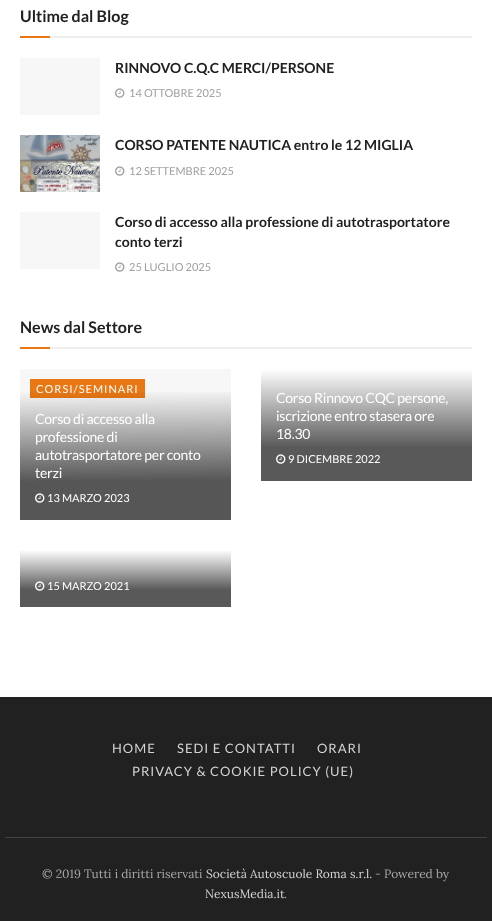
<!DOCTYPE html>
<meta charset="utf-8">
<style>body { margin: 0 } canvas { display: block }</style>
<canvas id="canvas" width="492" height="921"></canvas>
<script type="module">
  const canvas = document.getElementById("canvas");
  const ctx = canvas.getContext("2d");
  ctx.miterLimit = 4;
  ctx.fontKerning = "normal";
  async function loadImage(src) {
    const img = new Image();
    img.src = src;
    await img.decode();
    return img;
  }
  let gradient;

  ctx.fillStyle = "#ffffff";
  ctx.fillRect(0, 0, 492, 921);
  ctx.fillStyle = "#eeeeee";
  ctx.fillRect(50, 36, 422, 2);
  ctx.font = "bold 16px Lato";
  ctx.fillStyle = "#212121";
  ctx.fillText("Ultime dal Blog", 20, 22);
  ctx.fillStyle = "#e87714";
  ctx.fillRect(20, 36, 30, 2);
  ctx.fillStyle = "#f7f7f7";
  ctx.fillRect(20, 58, 80, 57);
  ctx.font = "bold 14px Lato";
  ctx.fillStyle = "#212121";
  ctx.fillText("RINNOVO C.Q.C MERCI/PERSONE", 115, 73);
  ctx.drawImage(await loadImage("img1.png"), 115, 88, 10, 10);
  ctx.font = "11px Lato";
  ctx.fillStyle = "#a0a0a0";
  ctx.fillText("14 OTTOBRE 2025", 129, 97);
  ctx.drawImage(await loadImage("img2.png"), 20, 135, 80, 57);
  ctx.font = "bold 14px Lato";
  ctx.fillStyle = "#212121";
  ctx.fillText("CORSO PATENTE NAUTICA entro le 12 MIGLIA", 115, 150);
  ctx.drawImage(await loadImage("img1.png"), 115, 166, 10, 10);
  ctx.font = "11px Lato";
  ctx.fillStyle = "#a0a0a0";
  ctx.fillText("12 SETTEMBRE 2025", 129, 175);
  ctx.fillStyle = "#f7f7f7";
  ctx.fillRect(20, 212, 80, 57);
  ctx.font = "bold 14px Lato";
  ctx.fillStyle = "#212121";
  ctx.fillText("Corso di accesso alla professione di autotrasportatore", 115, 227);
  ctx.fillText("conto terzi", 115, 247);
  ctx.drawImage(await loadImage("img1.png"), 115, 262, 10, 10);
  ctx.font = "11px Lato";
  ctx.fillStyle = "#a0a0a0";
  ctx.fillText("25 LUGLIO 2025", 129, 271);
  ctx.fillStyle = "#eeeeee";
  ctx.fillRect(50, 347, 422, 2);
  ctx.font = "bold 16px Lato";
  ctx.fillStyle = "#212121";
  ctx.fillText("News dal Settore", 20, 333);
  ctx.fillStyle = "#e87714";
  ctx.fillRect(20, 347, 30, 2);
  ctx.fillStyle = "#f7f7f7";
  ctx.fillRect(20, 369, 211, 151);
  ctx.fillStyle = "#e87714";
  ctx.fillRect(30, 379, 115, 19);
  ctx.letterSpacing = "1px";
  ctx.font = "11px Lato";
  ctx.fillStyle = "#ffffff";
  ctx.fillText("CORSI/SEMINARI", 36, 393);
  gradient = ctx.createLinearGradient(125, 390, 126, 520);
  gradient.addColorStop(0, "rgba(0, 0, 0, 0)");
  gradient.addColorStop(0.7, "rgba(0, 0, 0, 0.65)");
  ctx.fillStyle = gradient;
  ctx.fillRect(20, 392, 211, 128);
  ctx.letterSpacing = "-0.25px";
  ctx.font = "14px Lato";
  ctx.fillStyle = "#ffffff";
  ctx.fillText("Corso di accesso alla", 35, 424);
  ctx.fillText("professione di", 35, 442);
  ctx.fillText("autotrasportatore per conto", 35, 460);
  ctx.fillText("terzi", 35, 478);
  ctx.drawImage(await loadImage("img3.png"), 35, 493, 10, 10);
  ctx.letterSpacing = "0px";
  ctx.font = "11px Lato";
  ctx.fillText("13 MARZO 2023", 47, 502);
  gradient = ctx.createLinearGradient(367, 369, 367, 481);
  gradient.addColorStop(0, "#ffffff");
  gradient.addColorStop(0.7, "#595959");
  ctx.fillStyle = gradient;
  ctx.fillRect(261, 370, 211, 111);
  ctx.letterSpacing = "-0.25px";
  ctx.font = "14px Lato";
  ctx.fillStyle = "#ffffff";
  ctx.fillText("Corso Rinnovo CQC persone,", 276, 403);
  ctx.fillText("iscrizione entro stasera ore", 276, 421);
  ctx.fillText("18.30", 276, 439);
  ctx.drawImage(await loadImage("img4.png"), 276, 454, 10, 10);
  ctx.letterSpacing = "0px";
  ctx.font = "11px Lato";
  ctx.fillText("9 DICEMBRE 2022", 288, 463);
  gradient = ctx.createLinearGradient(126, 550, 126, 607);
  gradient.addColorStop(0, "#ffffff");
  gradient.addColorStop(0.7, "#595959");
  ctx.fillStyle = gradient;
  ctx.fillRect(20, 551, 211, 56);
  ctx.drawImage(await loadImage("img5.png"), 35, 581, 10, 10);
  ctx.fillStyle = "#ffffff";
  ctx.fillText("15 MARZO 2021", 47, 590);
  ctx.fillStyle = "#212121";
  ctx.fillRect(0, 697, 492, 224);
  ctx.letterSpacing = "1px";
  ctx.font = "13px Lato";
  ctx.fillStyle = "#d3d3d3";
  ctx.fillText("HOME", 112, 753);
  ctx.fillText("SEDI E CONTATTI", 177, 753);
  ctx.fillText("ORARI", 317, 753);
  ctx.fillText("PRIVACY & COOKIE POLICY (UE)", 132, 776);
  ctx.fillStyle = "#424242";
  ctx.fillRect(5, 837, 482, 1);
  ctx.letterSpacing = "0px";
  ctx.font = "12px Lora";
  ctx.fillStyle = "#a8a8aa";
  ctx.fillText("© 2019 Tutti i diritti riservati", 42, 878);
  ctx.fillStyle = "#d3d3d3";
  ctx.fillText("Società Autoscuole Roma s.r.l.", 206, 878);
  ctx.fillStyle = "#a8a8aa";
  ctx.fillText("- Powered by", 375, 878);
  ctx.fillStyle = "#d3d3d3";
  ctx.fillText("NexusMedia.it", 205, 898);
  ctx.fillStyle = "#a8a8aa";
  ctx.fillText(".", 284, 898);
</script>
